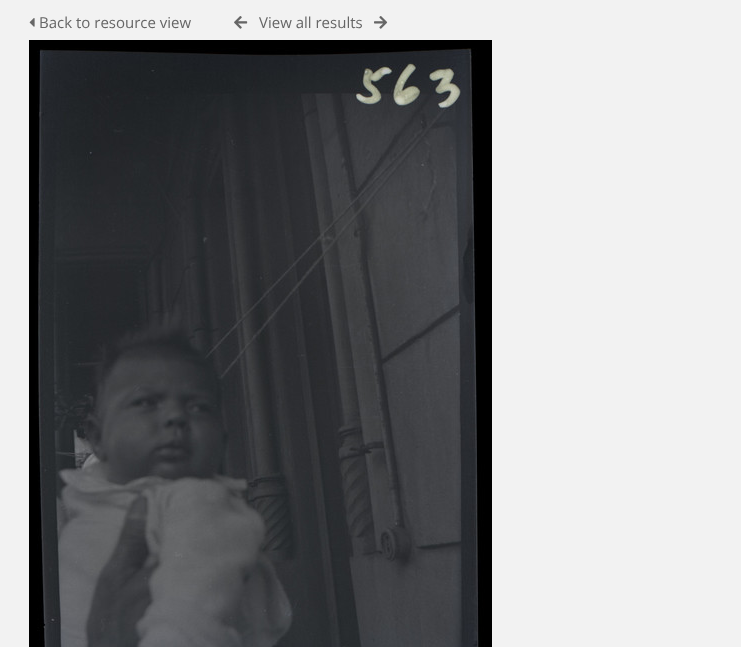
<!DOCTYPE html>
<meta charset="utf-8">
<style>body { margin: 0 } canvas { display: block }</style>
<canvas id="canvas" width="741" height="647"></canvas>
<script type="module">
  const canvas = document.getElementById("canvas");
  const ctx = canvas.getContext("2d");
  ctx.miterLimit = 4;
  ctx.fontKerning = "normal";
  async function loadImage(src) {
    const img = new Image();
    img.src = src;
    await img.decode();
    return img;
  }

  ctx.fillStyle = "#f2f2f2";
  ctx.fillRect(0, 0, 741, 647);
  ctx.drawImage(await loadImage("img1.png"), 29, 18, 6, 9);
  ctx.font = "15px Open Sans";
  ctx.fillStyle = "#666666";
  ctx.fillText("Back to resource view", 39, 28);
  ctx.drawImage(await loadImage("img2.png"), 234, 16, 14, 13);
  ctx.fillText("View all results", 259, 28);
  ctx.drawImage(await loadImage("img3.png"), 374, 16, 14, 13);
  ctx.drawImage(await loadImage("img4.png"), 29, 40, 463, 607);
</script>
